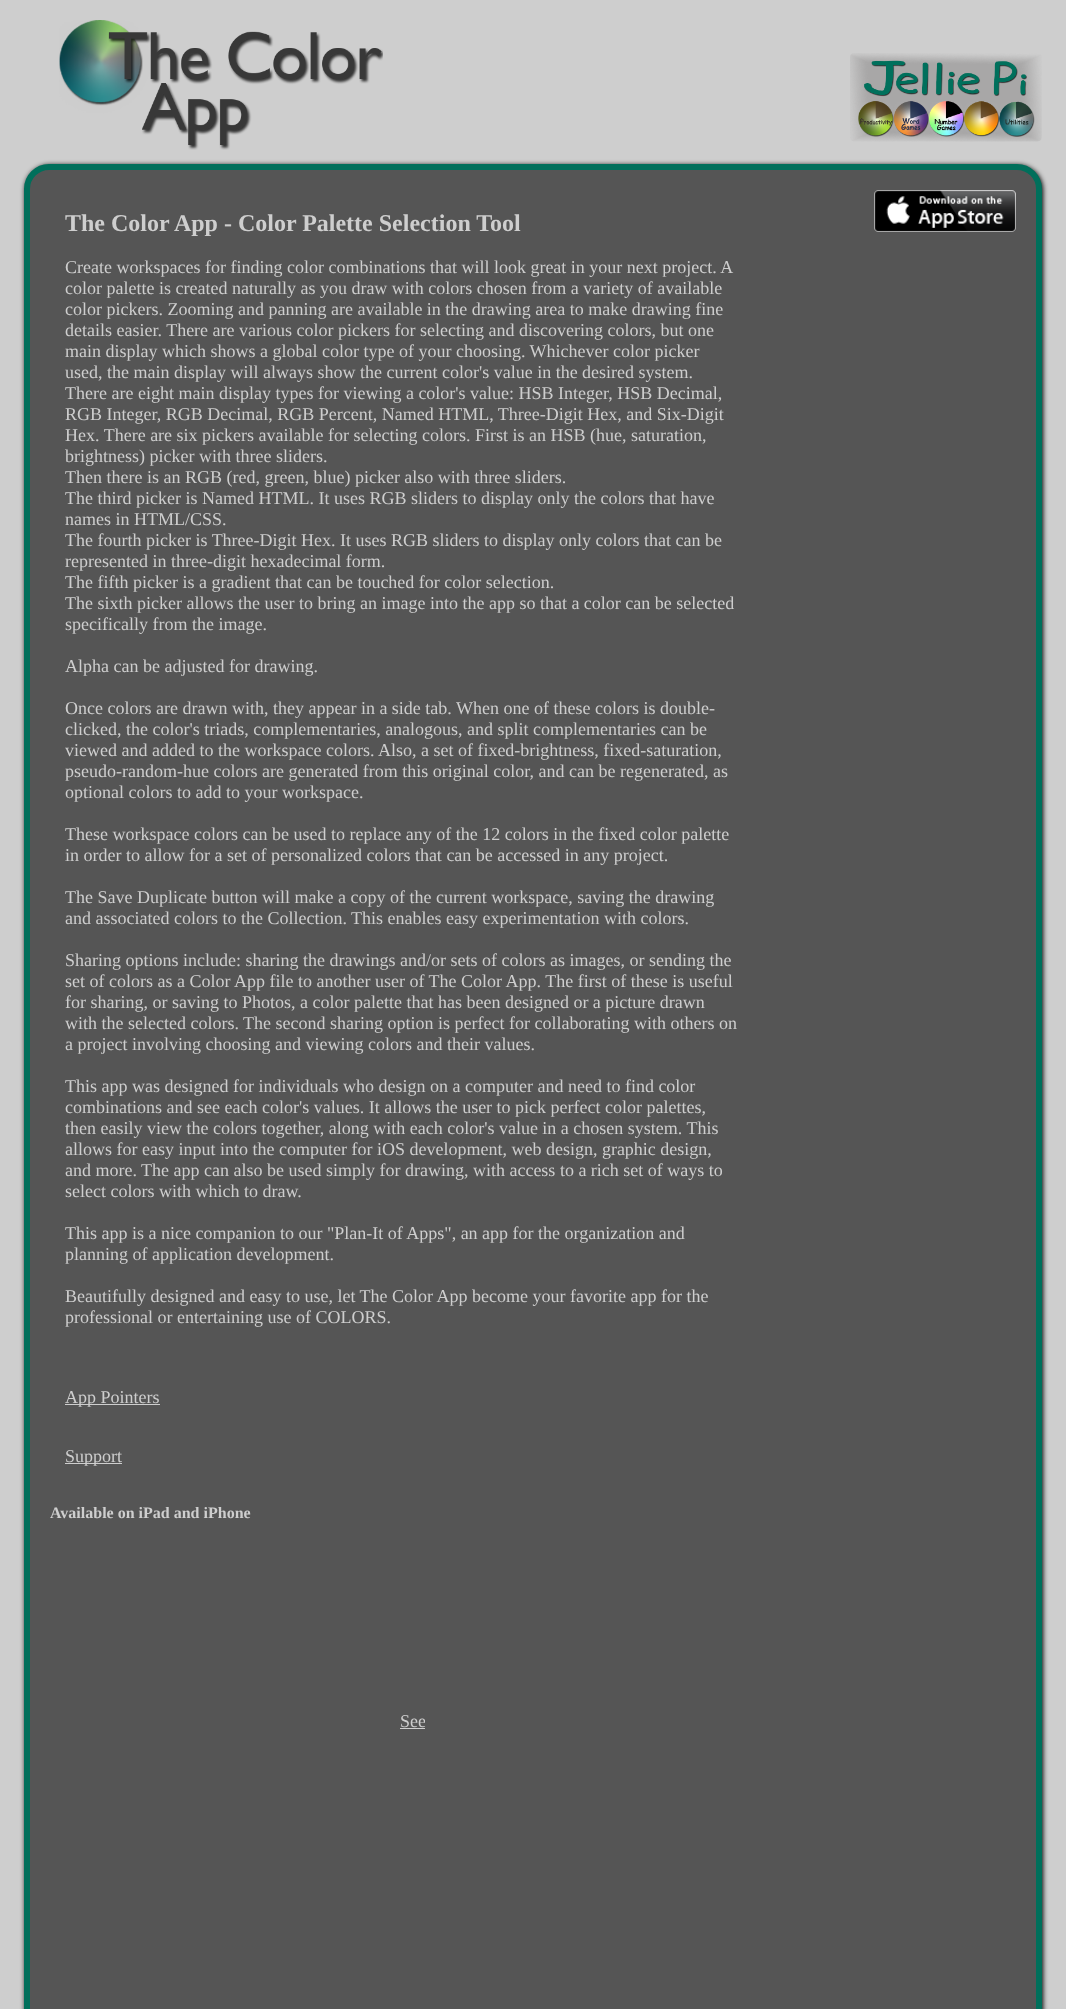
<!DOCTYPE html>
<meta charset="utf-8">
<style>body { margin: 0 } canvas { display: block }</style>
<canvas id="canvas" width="1066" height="2009"></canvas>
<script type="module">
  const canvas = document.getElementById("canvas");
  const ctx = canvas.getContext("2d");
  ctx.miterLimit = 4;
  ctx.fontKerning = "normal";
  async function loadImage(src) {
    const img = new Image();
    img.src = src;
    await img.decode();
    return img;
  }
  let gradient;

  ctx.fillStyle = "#cecece";
  ctx.fillRect(0, 0, 1066, 2009);
  ctx.drawImage(await loadImage("img1.png"), 59, 20, 324, 130);
  ctx.drawImage(await loadImage("img2.png"), 850, 53, 192, 89);
  ctx.fillStyle = "#000000";
  ctx.filter = "blur(2.5px)";
  ctx.beginPath();
  ctx.roundRect(25, 165, 1018, 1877, 25);
  ctx.fill();
  ctx.filter = "none";
  ctx.fillStyle = "#555555";
  ctx.beginPath();
  ctx.roundRect(27, 167, 1012, 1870, 22);
  ctx.fill();
  ctx.strokeStyle = "#006f5b";
  ctx.lineWidth = 6;
  ctx.stroke();
  ctx.font = "bold 24px Liberation Serif";
  ctx.fillStyle = "#cecece";
  ctx.fillText("The Color App - Color Palette Selection Tool", 65, 231);
  ctx.drawImage(await loadImage("img3.png"), 874, 190, 142, 42);
  ctx.font = "18px Liberation Serif";
  ctx.fillText("Create workspaces for finding color combinations that will look great in your next project. A", 65, 273);
  ctx.fillText("color palette is created naturally as you draw with colors chosen from a variety of available", 65, 294);
  ctx.fillText("color pickers. Zooming and panning are available in the drawing area to make drawing fine", 65, 315);
  ctx.fillText("details easier. There are various color pickers for selecting and discovering colors, but one", 65, 336);
  ctx.fillText("main display which shows a global color type of your choosing. Whichever color picker", 65, 357);
  ctx.fillText("used, the main display will always show the current color's value in the desired system.", 65, 378);
  ctx.fillText("There are eight main display types for viewing a color's value: HSB Integer, HSB Decimal,", 65, 399);
  ctx.fillText("RGB Integer, RGB Decimal, RGB Percent, Named HTML, Three-Digit Hex, and Six-Digit", 65, 420);
  ctx.fillText("Hex. There are six pickers available for selecting colors. First is an HSB (hue, saturation,", 65, 441);
  ctx.fillText("brightness) picker with three sliders.", 65, 462);
  ctx.fillText("Then there is an RGB (red, green, blue) picker also with three sliders.", 65, 483);
  ctx.fillText("The third picker is Named HTML. It uses RGB sliders to display only the colors that have", 65, 504);
  ctx.fillText("names in HTML/CSS.", 65, 525);
  ctx.fillText("The fourth picker is Three-Digit Hex. It uses RGB sliders to display only colors that can be", 65, 546);
  ctx.fillText("represented in three-digit hexadecimal form.", 65, 567);
  ctx.fillText("The fifth picker is a gradient that can be touched for color selection.", 65, 588);
  ctx.fillText("The sixth picker allows the user to bring an image into the app so that a color can be selected", 65, 609);
  ctx.fillText("specifically from the image.", 65, 630);
  ctx.fillText("Alpha can be adjusted for drawing.", 65, 672);
  ctx.fillText("Once colors are drawn with, they appear in a side tab. When one of these colors is double-", 65, 714);
  ctx.fillText("clicked, the color's triads, complementaries, analogous, and split complementaries can be", 65, 735);
  ctx.fillText("viewed and added to the workspace colors. Also, a set of fixed-brightness, fixed-saturation,", 65, 756);
  ctx.fillText("pseudo-random-hue colors are generated from this original color, and can be regenerated, as", 65, 777);
  ctx.fillText("optional colors to add to your workspace.", 65, 798);
  ctx.fillText("These workspace colors can be used to replace any of the 12 colors in the fixed color palette", 65, 840);
  ctx.fillText("in order to allow for a set of personalized colors that can be accessed in any project.", 65, 861);
  ctx.fillText("The Save Duplicate button will make a copy of the current workspace, saving the drawing", 65, 903);
  ctx.fillText("and associated colors to the Collection. This enables easy experimentation with colors.", 65, 924);
  ctx.fillText("Sharing options include: sharing the drawings and/or sets of colors as images, or sending the", 65, 966);
  ctx.fillText("set of colors as a Color App file to another user of The Color App. The first of these is useful", 65, 987);
  ctx.fillText("for sharing, or saving to Photos, a color palette that has been designed or a picture drawn", 65, 1008);
  ctx.fillText("with the selected colors. The second sharing option is perfect for collaborating with others on", 65, 1029);
  ctx.fillText("a project involving choosing and viewing colors and their values.", 65, 1050);
  ctx.fillText("This app was designed for individuals who design on a computer and need to find color", 65, 1092);
  ctx.fillText("combinations and see each color's values. It allows the user to pick perfect color palettes,", 65, 1113);
  ctx.fillText("then easily view the colors together, along with each color's value in a chosen system. This", 65, 1134);
  ctx.fillText("allows for easy input into the computer for iOS development, web design, graphic design,", 65, 1155);
  ctx.fillText("and more.", 65, 1176);
  ctx.fillText("The app can also be used simply for drawing, with access to a rich set of ways to", 141, 1176);
  ctx.fillText("select colors with which to draw.", 65, 1197);
  ctx.fillText("This app is a nice companion to our \"Plan-It of Apps\", an app for the organization and", 65, 1239);
  ctx.fillText("planning of application development.", 65, 1260);
  ctx.fillText("Beautifully designed and easy to use, let The Color App become your favorite app for the", 65, 1302);
  ctx.fillText("professional or entertaining use of COLORS.", 65, 1323);
  ctx.fillRect(65, 1404, 95, 1);
  ctx.fillText("App Pointers", 65, 1403);
  ctx.fillRect(65, 1463, 57, 1);
  ctx.fillText("Support", 65, 1462);
  ctx.font = "bold 16px Liberation Serif";
  ctx.fillText("Available on iPad and iPhone", 50, 1518);
  ctx.font = "18px Liberation Serif";
  ctx.fillText("See", 400, 1727);
  ctx.fillRect(400, 1728, 25, 1);
  gradient = ctx.createLinearGradient(425, 1827, 425, 1597);
  gradient.addColorStop(0.8, "#555555");
  gradient.addColorStop(0.92, "rgba(85, 85, 85, 0)");
  ctx.fillStyle = gradient;
  ctx.fillRect(425, 1720, 1, 3);
</script>
